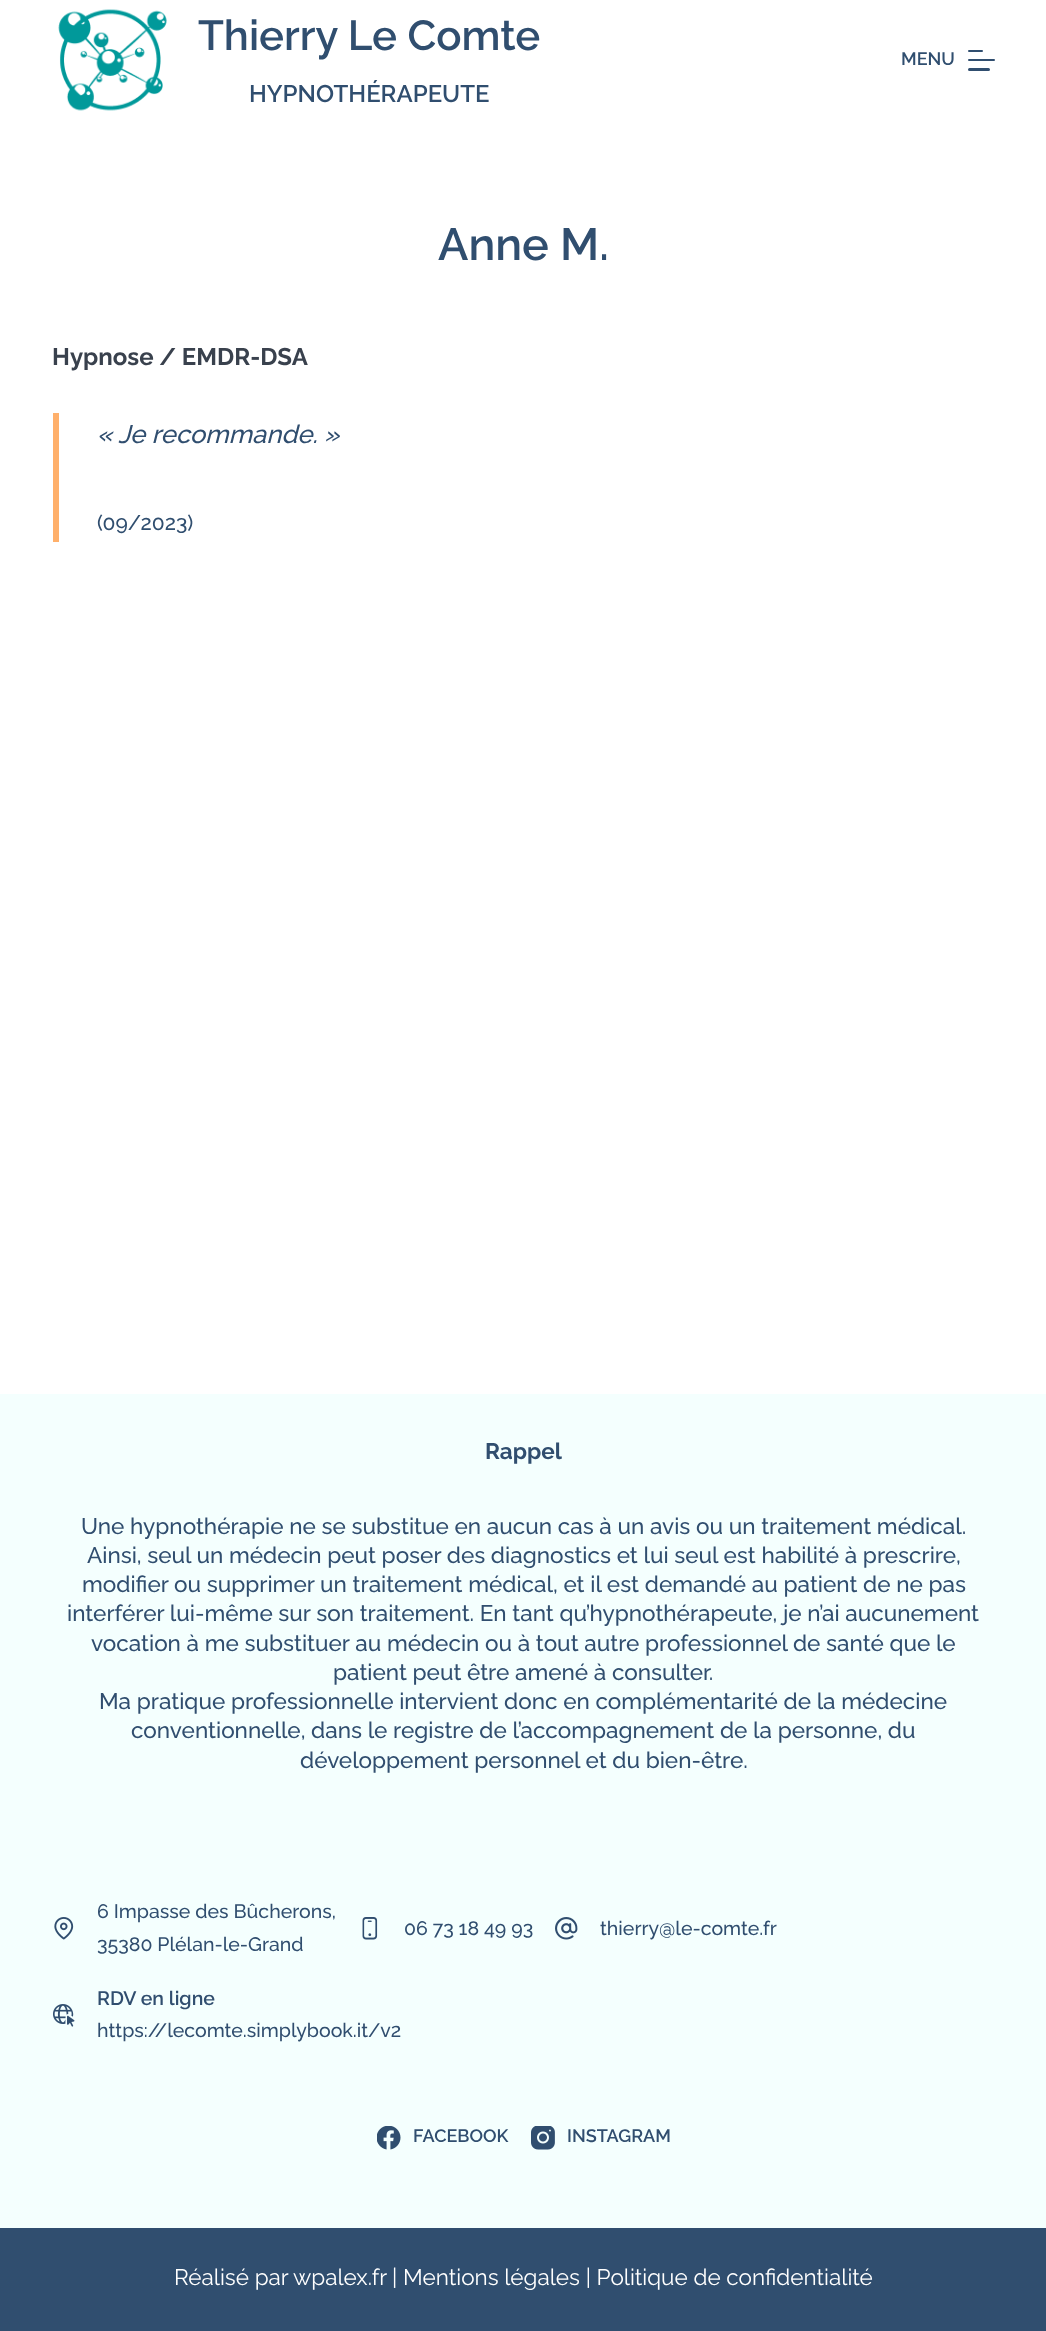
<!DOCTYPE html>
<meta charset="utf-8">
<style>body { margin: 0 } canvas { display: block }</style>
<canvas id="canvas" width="1046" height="2331"></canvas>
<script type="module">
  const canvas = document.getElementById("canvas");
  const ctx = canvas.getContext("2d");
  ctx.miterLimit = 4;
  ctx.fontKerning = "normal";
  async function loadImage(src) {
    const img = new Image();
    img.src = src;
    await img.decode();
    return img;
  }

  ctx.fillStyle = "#ffffff";
  ctx.fillRect(0, 0, 1046, 2331);
  ctx.drawImage(await loadImage("img1.png"), 58, 9, 109, 102);
  ctx.font = "600 42px Raleway";
  ctx.fillStyle = "#304e6f";
  ctx.fillText("Thierry Le Comte", 198, 50);
  ctx.font = "600 24px Raleway";
  ctx.fillText("HYPNOTHÉRAPEUTE", 249, 102);
  ctx.font = "600 18px Raleway";
  ctx.fillText("MENU", 901, 65);
  ctx.beginPath();
  ctx.roundRect(968, 50, 15, 2, 1);
  ctx.fill();
  ctx.beginPath();
  ctx.roundRect(968, 59, 27, 2, 1);
  ctx.fill();
  ctx.beginPath();
  ctx.roundRect(968, 68, 22, 3, 1.5);
  ctx.fill();
  ctx.font = "600 45px Raleway";
  ctx.fillText("Anne M.", 438, 260);
  ctx.font = "bold 24px Raleway";
  ctx.fillStyle = "#39414d";
  ctx.fillText("Hypnose / EMDR-DSA", 52, 365);
  ctx.fillStyle = "#ffb06b";
  ctx.fillRect(53, 413, 6, 129);
  ctx.font = "italic 500 25.5px Raleway";
  ctx.fillStyle = "#304e6f";
  ctx.fillText("« Je recommande. »", 97, 443);
  ctx.font = "500 21px Raleway";
  ctx.fillText("(09/2023)", 97, 530);
  ctx.fillStyle = "#f4fffe";
  ctx.fillRect(0, 1394, 1046, 834);
  ctx.font = "bold 22.5px Raleway";
  ctx.fillStyle = "#304e6f";
  ctx.fillText("Rappel", 485, 1459);
  ctx.font = "500 22.5px Raleway";
  ctx.fillText("Une hypnothérapie ne se substitue en aucun cas à un avis ou un traitement médical.", 81, 1534);
  ctx.fillText("Ainsi, seul un médecin peut poser des diagnostics et lui seul est habilité à prescrire,", 87, 1563);
  ctx.fillText("modifier ou supprimer un traitement médical, et il est demandé au patient de ne pas", 82, 1592);
  ctx.fillText("interférer lui-même sur son traitement. En tant qu’hypnothérapeute, je n’ai aucunement", 67, 1621);
  ctx.fillText("vocation à me substituer au médecin ou à tout autre professionnel de santé que le", 91, 1651);
  ctx.fillText("patient peut être amené à consulter.", 333, 1680);
  ctx.fillText("Ma pratique professionnelle intervient donc en complémentarité de la médecine", 99, 1709);
  ctx.fillText("conventionnelle, dans le registre de l’accompagnement de la personne, du", 131, 1738);
  ctx.fillText("développement personnel et du bien-être.", 300, 1768);
  ctx.drawImage(await loadImage("img2.png"), 54, 1917, 20, 23);
  ctx.font = "500 19.5px Raleway";
  ctx.fillText("6 Impasse des Bûcherons,", 97, 1918);
  ctx.fillText("35380 Plélan-le-Grand", 97, 1951);
  ctx.drawImage(await loadImage("img3.png"), 362, 1917, 16, 23);
  ctx.fillText("06 73 18 49 93", 404, 1935);
  ctx.drawImage(await loadImage("img4.png"), 555, 1917, 23, 23);
  ctx.fillText("thierry@le-comte.fr", 600, 1935);
  ctx.drawImage(await loadImage("img5.png"), 53, 2004, 22, 23);
  ctx.font = "600 19.5px Raleway";
  ctx.fillText("RDV en ligne", 97, 2005);
  ctx.font = "500 19.5px Raleway";
  ctx.fillText("https://lecomte.simplybook.it/v2", 97, 2037);
  ctx.drawImage(await loadImage("img6.png"), 377, 2126, 24, 24);
  ctx.font = "600 18px Raleway";
  ctx.fillText("FACEBOOK", 413, 2142);
  ctx.drawImage(await loadImage("img7.png"), 531, 2126, 24, 24);
  ctx.fillText("INSTAGRAM", 567, 2142);
  ctx.fillRect(0, 2228, 1046, 103);
  ctx.font = "22.5px Raleway";
  ctx.fillStyle = "#ffffff";
  ctx.fillText("Réalisé par", 174, 2285);
  ctx.fillText("wpalex.fr", 293, 2285);
  ctx.fillText("| Mentions légales | Politique de confidentialité", 392, 2285);
</script>
